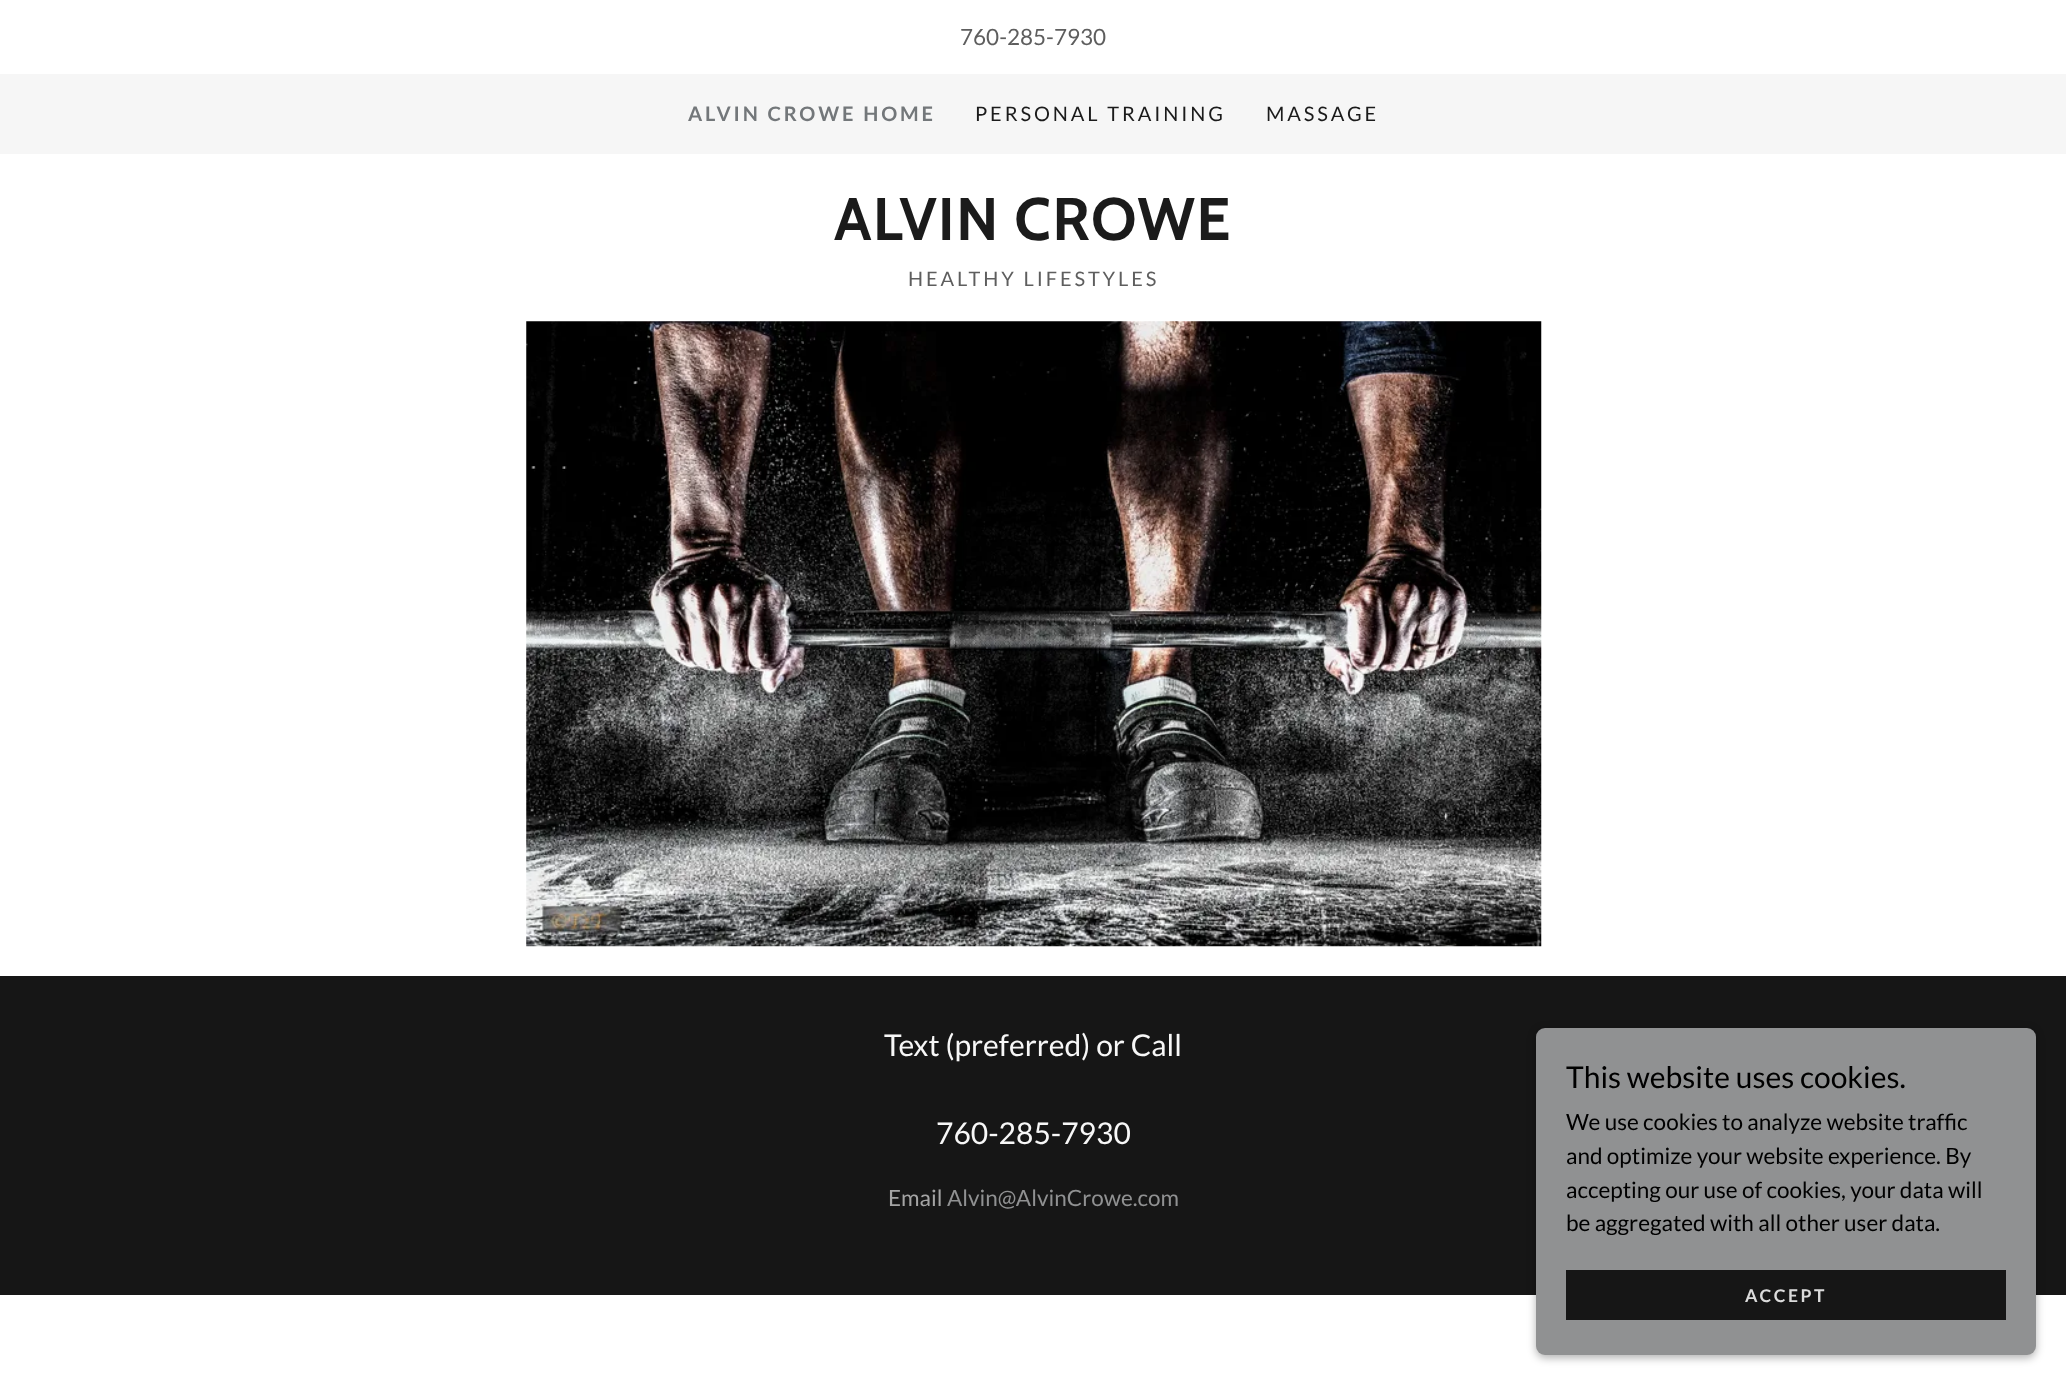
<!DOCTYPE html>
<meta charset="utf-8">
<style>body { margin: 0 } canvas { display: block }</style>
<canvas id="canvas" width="2066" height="1384"></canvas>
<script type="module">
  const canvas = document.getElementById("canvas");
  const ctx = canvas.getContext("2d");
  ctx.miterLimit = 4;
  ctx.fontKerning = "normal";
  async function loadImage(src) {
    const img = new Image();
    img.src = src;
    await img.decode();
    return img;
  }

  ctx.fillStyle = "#ffffff";
  ctx.fillRect(0, 0, 2066, 1384);
  ctx.font = "22.5px Lato";
  ctx.fillStyle = "#5e5e5e";
  ctx.fillText("760-285-7930", 960, 45);
  ctx.fillStyle = "#f6f6f6";
  ctx.fillRect(0, 74, 2066, 80);
  ctx.letterSpacing = "2.9px";
  ctx.font = "bold 20px Lato";
  ctx.fillStyle = "#73777a";
  ctx.fillText("ALVIN CROWE HOME", 688, 121);
  ctx.font = "20px Lato";
  ctx.fillStyle = "#1b1b1b";
  ctx.fillText("PERSONAL TRAINING", 975, 121);
  ctx.fillText("MASSAGE", 1266, 121);
  ctx.letterSpacing = "1.25px";
  ctx.font = "bold 60px Cabin";
  ctx.fillText("ALVIN CROWE", 834, 240);
  ctx.letterSpacing = "2.9px";
  ctx.font = "20px Lato";
  ctx.fillStyle = "#5e5e5e";
  ctx.fillText("HEALTHY LIFESTYLES", 908, 286);
  ctx.drawImage(await loadImage("img1.png"), 526, 321, 1016, 626);
  ctx.fillStyle = "#161616";
  ctx.fillRect(0, 976, 2066, 319);
  ctx.letterSpacing = "0px";
  ctx.font = "30px Lato";
  ctx.fillStyle = "#f7f7f7";
  ctx.fillText("Text (preferred) or Call", 884, 1056);
  ctx.fillText("760-285-7930", 936, 1144);
  ctx.font = "22.5px Lato";
  ctx.fillStyle = "#a4a4a4";
  ctx.fillText("Email", 888, 1206);
  ctx.fillStyle = "#909192";
  ctx.fillText("Alvin@AlvinCrowe.com", 947, 1206);
  ctx.fillStyle = "rgba(0, 0, 0, 0.3)";
  ctx.filter = "blur(4px)";
  ctx.beginPath();
  ctx.roundRect(1536, 1030, 500, 328, 9);
  ctx.fill();
  ctx.filter = "none";
  ctx.fillStyle = "#909192";
  ctx.beginPath();
  ctx.roundRect(1536, 1028, 500, 327, 9);
  ctx.fill();
  ctx.font = "30px Lato";
  ctx.fillStyle = "#000000";
  ctx.fillText("This website uses cookies.", 1566, 1088);
  ctx.font = "22.5px Lato";
  ctx.fillText("We use cookies to analyze website traffic", 1566, 1130);
  ctx.fillText("and optimize your website experience. By", 1566, 1164);
  ctx.fillText("accepting our use of cookies, your data will", 1566, 1198);
  ctx.fillText("be aggregated with all other user data.", 1566, 1231);
  ctx.fillStyle = "#161616";
  ctx.fillRect(1566, 1270, 440, 50);
  ctx.letterSpacing = "2.5px";
  ctx.font = "bold 17.5px Lato";
  ctx.fillStyle = "#dbdbdb";
  ctx.fillText("ACCEPT", 1745, 1302);
</script>
